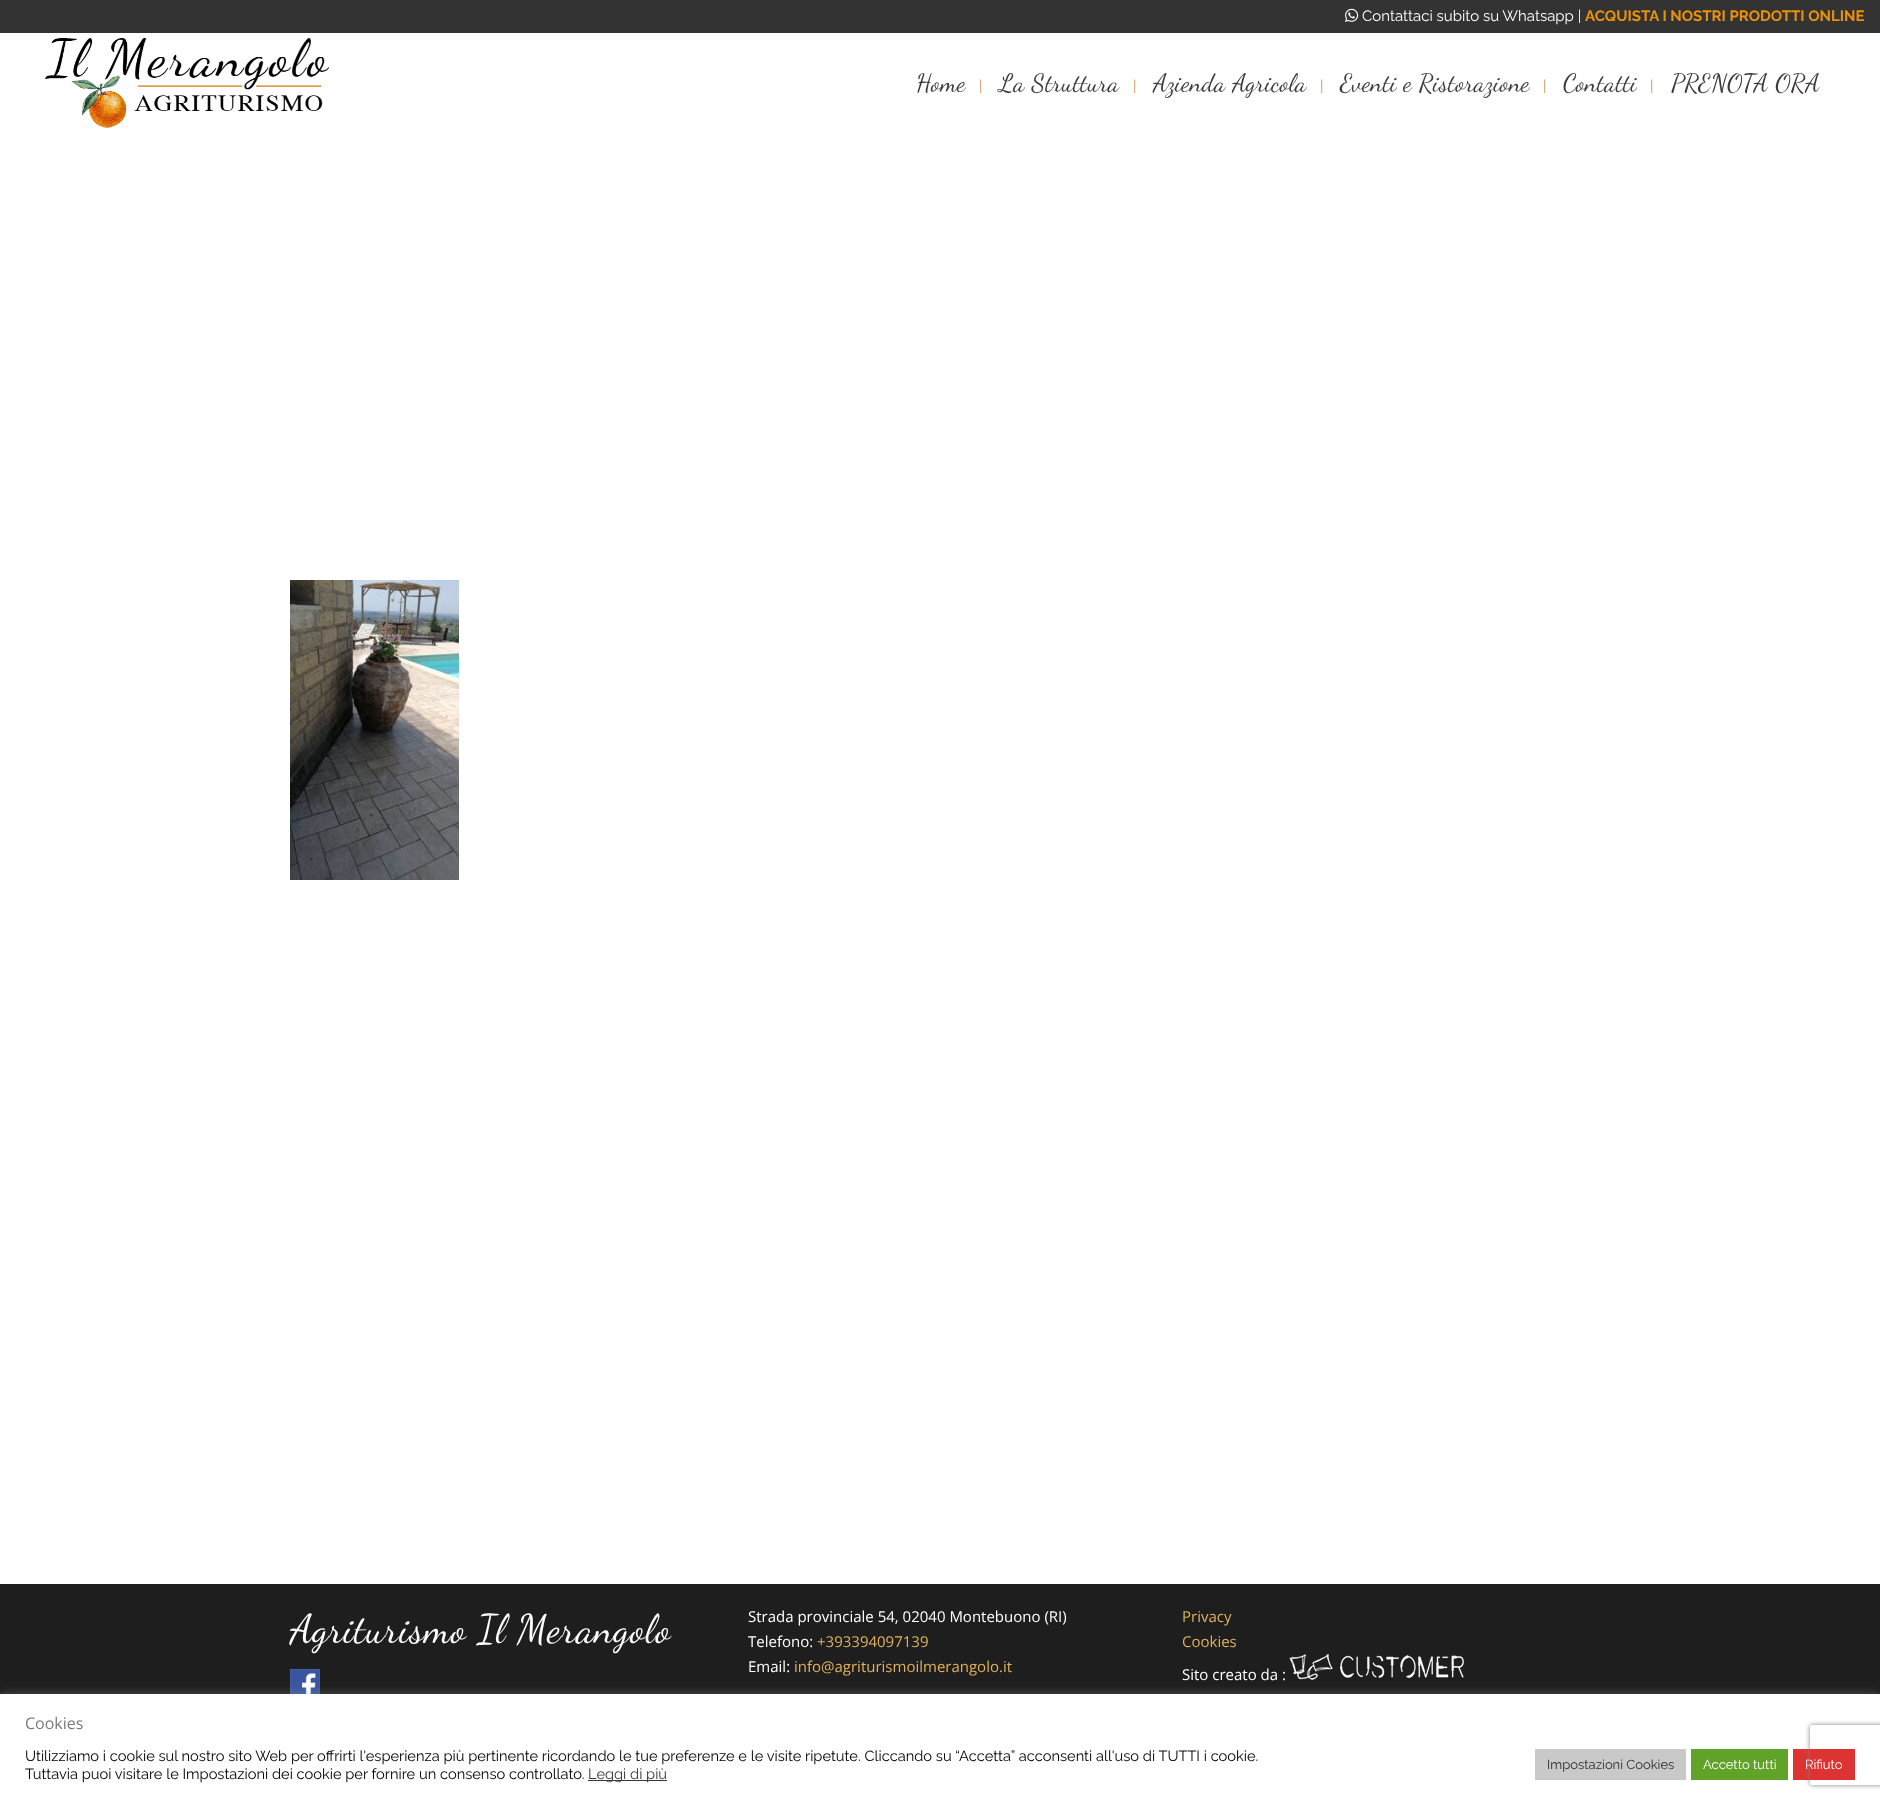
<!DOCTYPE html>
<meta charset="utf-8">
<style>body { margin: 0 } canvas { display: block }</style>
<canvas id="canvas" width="1880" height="1799"></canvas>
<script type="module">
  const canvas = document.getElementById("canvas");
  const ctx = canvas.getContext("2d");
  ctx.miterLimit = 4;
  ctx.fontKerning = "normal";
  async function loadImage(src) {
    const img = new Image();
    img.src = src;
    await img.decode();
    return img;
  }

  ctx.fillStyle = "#ffffff";
  ctx.fillRect(0, 0, 1880, 1799);
  ctx.fillStyle = "#333333";
  ctx.fillRect(0, 0, 1880, 33);
  ctx.drawImage(await loadImage("img1.png"), 1345, 8, 14, 14);
  ctx.font = "15px Raleway";
  ctx.fillStyle = "#ffffff";
  ctx.fillText("Contattaci subito su Whatsapp |", 1362, 21);
  ctx.font = "bold 15px Raleway";
  ctx.fillStyle = "#e9920a";
  ctx.fillText("ACQUISTA I NOSTRI PRODOTTI ONLINE", 1585, 21);
  ctx.drawImage(await loadImage("img2.png"), 45, 38, 284, 90);
  ctx.letterSpacing = "0.3px";
  ctx.font = "25px Dancing Script";
  ctx.fillStyle = "#3e3a3b";
  ctx.fillText("Home", 916, 91);
  ctx.letterSpacing = "0px";
  ctx.font = "15px Raleway";
  ctx.fillStyle = "#c89454";
  ctx.fillText("|", 979, 91);
  ctx.letterSpacing = "0.3px";
  ctx.font = "25px Dancing Script";
  ctx.fillStyle = "#3e3a3b";
  ctx.fillText("La Struttura", 999, 91);
  ctx.letterSpacing = "0px";
  ctx.font = "15px Raleway";
  ctx.fillStyle = "#c89454";
  ctx.fillText("|", 1133, 91);
  ctx.letterSpacing = "0.3px";
  ctx.font = "25px Dancing Script";
  ctx.fillStyle = "#3e3a3b";
  ctx.fillText("Azienda Agricola", 1153, 91);
  ctx.letterSpacing = "0px";
  ctx.font = "15px Raleway";
  ctx.fillStyle = "#c89454";
  ctx.fillText("|", 1320, 91);
  ctx.letterSpacing = "0.3px";
  ctx.font = "25px Dancing Script";
  ctx.fillStyle = "#3e3a3b";
  ctx.fillText("Eventi e Ristorazione", 1340, 91);
  ctx.letterSpacing = "0px";
  ctx.font = "15px Raleway";
  ctx.fillStyle = "#c89454";
  ctx.fillText("|", 1543, 91);
  ctx.letterSpacing = "0.3px";
  ctx.font = "25px Dancing Script";
  ctx.fillStyle = "#3e3a3b";
  ctx.fillText("Contatti", 1563, 91);
  ctx.letterSpacing = "0px";
  ctx.font = "15px Raleway";
  ctx.fillStyle = "#c89454";
  ctx.fillText("|", 1650, 91);
  ctx.letterSpacing = "0.3px";
  ctx.font = "25px Dancing Script";
  ctx.fillStyle = "#3e3a3b";
  ctx.fillText("PRENOTA ORA", 1671, 91);
  ctx.drawImage(await loadImage("img3.png"), 290, 580, 169, 300);
  ctx.fillStyle = "#1f1e1e";
  ctx.fillRect(0, 1584, 1880, 110);
  ctx.letterSpacing = "0.8px";
  ctx.font = "40px Dancing Script";
  ctx.fillStyle = "#ffffff";
  ctx.fillText("Agriturismo Il Merangolo", 290, 1642);
  ctx.drawImage(await loadImage("img4.png"), 290, 1669, 30, 25);
  ctx.letterSpacing = "0px";
  ctx.font = "15px Open Sans";
  ctx.fillText("Strada provinciale 54, 02040 Montebuono (RI)", 748, 1622);
  ctx.fillText("Telefono:", 748, 1647);
  ctx.fillStyle = "#e0b25e";
  ctx.fillText("+393394097139", 817, 1647);
  ctx.fillStyle = "#ffffff";
  ctx.fillText("Email:", 748, 1672);
  ctx.fillStyle = "#e0b25e";
  ctx.fillText("info@agriturismoilmerangolo.it", 794, 1672);
  ctx.fillText("Privacy", 1182, 1622);
  ctx.fillText("Cookies", 1182, 1647);
  ctx.fillStyle = "#ffffff";
  ctx.fillText("Sito creato da :", 1182, 1680);
  ctx.drawImage(await loadImage("img5.png"), 1289, 1654, 175, 26);
  ctx.fillStyle = "rgba(172, 171, 171, 0.3)";
  ctx.filter = "blur(5px)";
  ctx.beginPath();
  ctx.rect(0, 1693, 1880, 105);
  ctx.fill();
  ctx.filter = "none";
  ctx.fillStyle = "#ffffff";
  ctx.fillRect(0, 1694, 1880, 105);
  ctx.font = "16px Open Sans";
  ctx.fillStyle = "#7b7b7b";
  ctx.fillText("Cookies", 25, 1729);
  ctx.font = "14.67px Raleway";
  ctx.fillStyle = "#000000";
  ctx.fillText("Utilizziamo i cookie sul nostro sito Web per offrirti l'esperienza più pertinente ricordando le tue preferenze e le visite ripetute. Cliccando su “Accetta” acconsenti all'uso di TUTTI i cookie.", 25, 1761);
  ctx.fillText("Tuttavia puoi visitare le Impostazioni dei cookie per fornire un consenso controllato.", 25, 1779);
  ctx.fillStyle = "#383838";
  ctx.fillRect(588, 1780, 79, 1);
  ctx.fillText("Leggi di più", 588, 1779);
  ctx.fillStyle = "#c9c9c9";
  ctx.fillRect(1535, 1749, 151, 31);
  ctx.font = "13px Raleway";
  ctx.fillStyle = "#2d2d2d";
  ctx.fillText("Impostazioni Cookies", 1547, 1769);
  ctx.fillStyle = "#61a229";
  ctx.fillRect(1691, 1749, 97, 31);
  ctx.fillStyle = "#ffffff";
  ctx.fillText("Accetto tutti", 1703, 1769);
  ctx.fillStyle = "#dd3333";
  ctx.fillRect(1793, 1749, 62, 31);
  ctx.fillStyle = "#ffffff";
  ctx.fillText("Rifiuto", 1805, 1769);
  ctx.save();
  ctx.beginPath();
  ctx.moveTo(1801, 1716);
  ctx.lineTo(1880, 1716);
  ctx.lineTo(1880, 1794);
  ctx.lineTo(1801, 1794);
  ctx.closePath();
  ctx.moveTo(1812, 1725);
  ctx.lineTo(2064, 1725);
  ctx.bezierCurveTo(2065, 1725, 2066, 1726, 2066, 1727);
  ctx.lineTo(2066, 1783);
  ctx.bezierCurveTo(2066, 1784, 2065, 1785, 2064, 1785);
  ctx.lineTo(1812, 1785);
  ctx.bezierCurveTo(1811, 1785, 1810, 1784, 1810, 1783);
  ctx.lineTo(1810, 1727);
  ctx.bezierCurveTo(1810, 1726, 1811, 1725, 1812, 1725);
  ctx.closePath();
  ctx.clip("evenodd");
  ctx.fillStyle = "#808080";
  ctx.filter = "blur(2.5px)";
  ctx.beginPath();
  ctx.roundRect(1810, 1725, 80, 60, 2);
  ctx.fill();
  ctx.filter = "none";
  ctx.restore();
</script>
